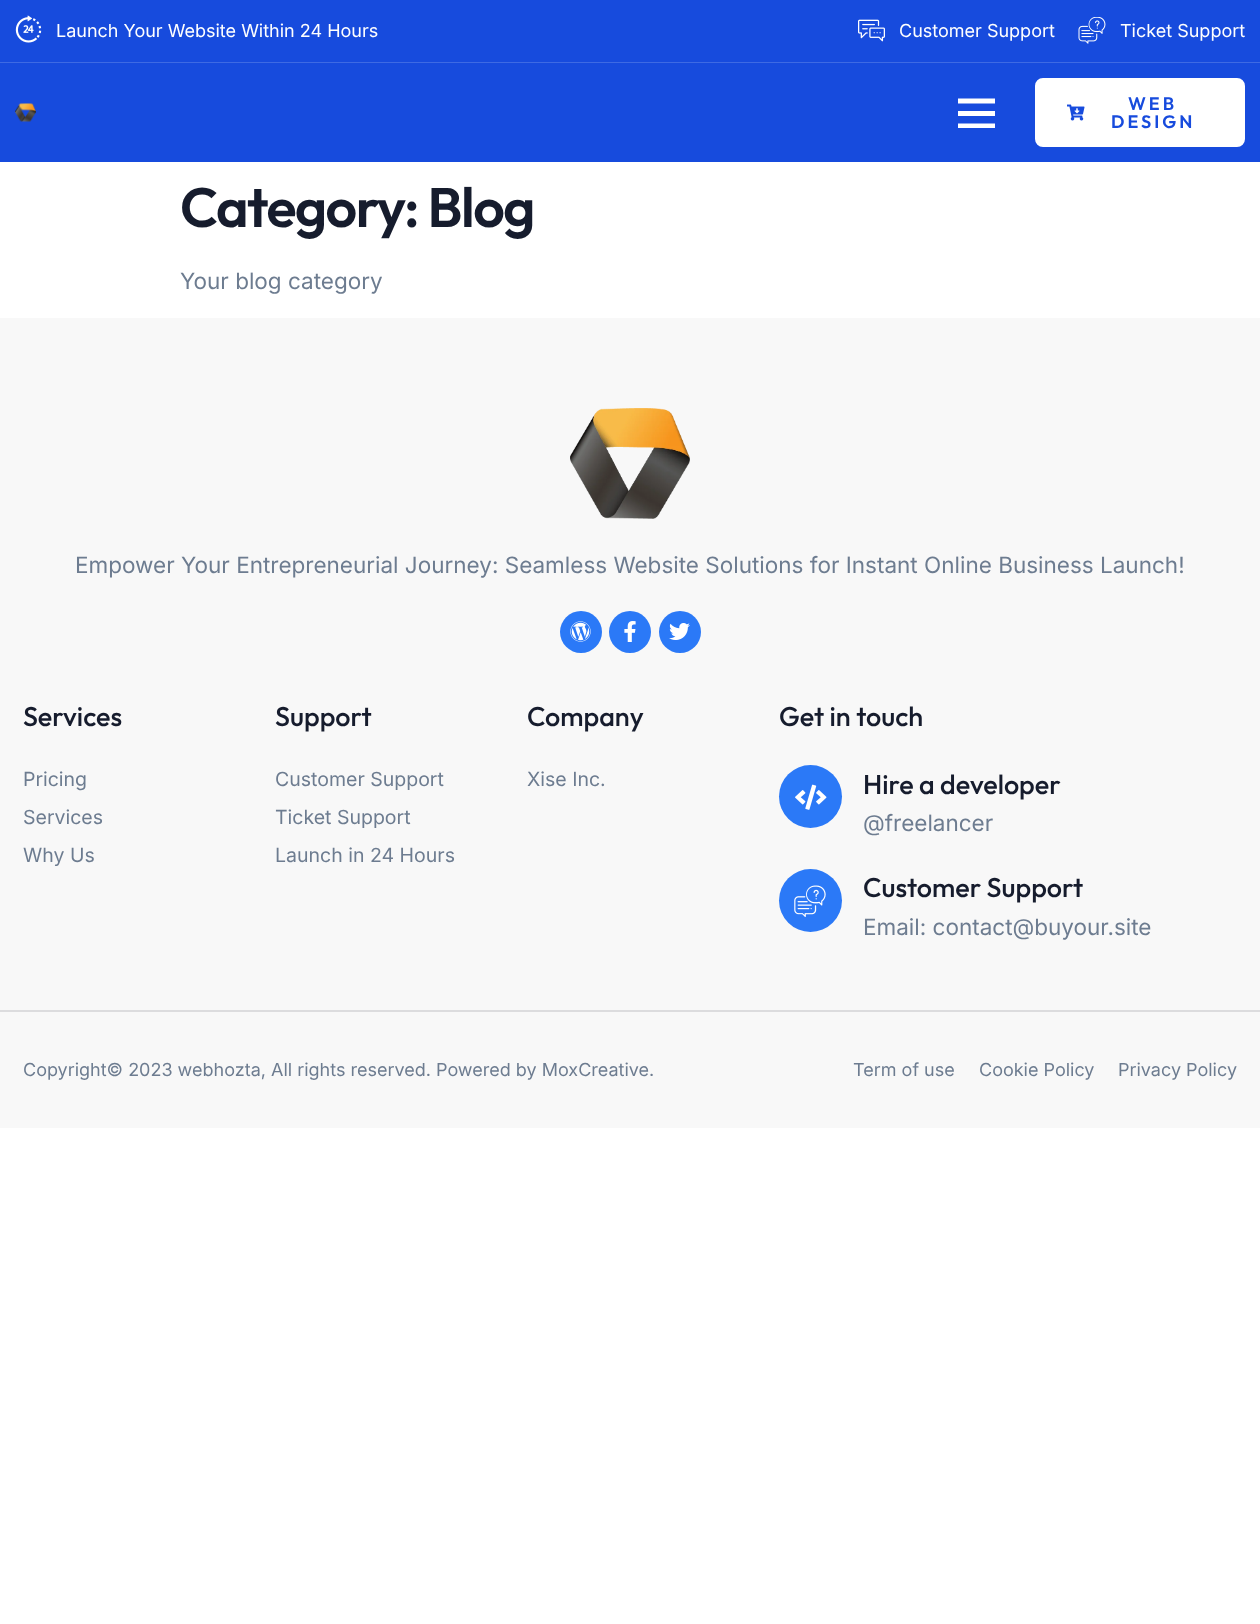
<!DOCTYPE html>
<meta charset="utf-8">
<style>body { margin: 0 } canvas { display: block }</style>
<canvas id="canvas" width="1260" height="1624"></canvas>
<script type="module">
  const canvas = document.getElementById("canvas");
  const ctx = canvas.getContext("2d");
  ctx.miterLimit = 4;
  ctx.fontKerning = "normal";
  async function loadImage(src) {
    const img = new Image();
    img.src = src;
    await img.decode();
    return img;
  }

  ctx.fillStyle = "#ffffff";
  ctx.fillRect(0, 0, 1260, 1624);
  ctx.fillStyle = "#174bdd";
  ctx.fillRect(0, 0, 1260, 62);
  ctx.fillStyle = "#3e6ae3";
  ctx.fillRect(0, 62, 1260, 1);
  ctx.drawImage(await loadImage("img1.png"), 15, 15, 27, 28);
  ctx.font = "18px Inter";
  ctx.fillStyle = "#ffffff";
  ctx.fillText("Launch Your Website Within 24 Hours", 56, 37);
  ctx.drawImage(await loadImage("img2.png"), 858, 19, 27, 23);
  ctx.fillText("Customer Support", 899, 37);
  ctx.drawImage(await loadImage("img3.png"), 1078, 17, 28, 27);
  ctx.fillText("Ticket Support", 1120, 37);
  ctx.fillStyle = "#174bdd";
  ctx.fillRect(0, 63, 1260, 99);
  ctx.drawImage(await loadImage("img4.png"), 15, 103, 21, 19);
  ctx.fillStyle = "#ffffff";
  ctx.beginPath();
  ctx.moveTo(995, 98.5);
  ctx.lineTo(995, 103.5);
  ctx.lineTo(958, 103.5);
  ctx.lineTo(958, 98.5);
  ctx.closePath();
  ctx.moveTo(958, 116);
  ctx.lineTo(995, 116);
  ctx.lineTo(995, 111);
  ctx.lineTo(958, 111);
  ctx.closePath();
  ctx.moveTo(958, 128);
  ctx.lineTo(995, 128);
  ctx.lineTo(995, 123.5);
  ctx.lineTo(958, 123.5);
  ctx.closePath();
  ctx.fill();
  ctx.beginPath();
  ctx.roundRect(1036, 79, 208, 67, 7);
  ctx.fill();
  ctx.strokeStyle = "#ffffff";
  ctx.lineWidth = 2;
  ctx.stroke();
  ctx.drawImage(await loadImage("img5.png"), 1067, 104, 18, 17);
  ctx.letterSpacing = "3px";
  ctx.font = "600 18px Outfit";
  ctx.fillStyle = "#174bdd";
  ctx.fillText("WEB", 1128, 110);
  ctx.fillText("DESIGN", 1111, 128);
  ctx.letterSpacing = "-1.5px";
  ctx.font = "600 55.5px Outfit";
  ctx.fillStyle = "#161c2d";
  ctx.fillText("Category: Blog", 180, 227);
  ctx.letterSpacing = "0px";
  ctx.font = "22.5px Inter";
  ctx.fillStyle = "#6d7c90";
  ctx.fillText("Your blog category", 180, 289);
  ctx.fillStyle = "#f8f8f8";
  ctx.fillRect(0, 318, 1260, 810);
  ctx.fillStyle = "#dcdcde";
  ctx.fillRect(0, 1010, 1260, 2);
  ctx.drawImage(await loadImage("img6.png"), 570, 408, 120, 111);
  ctx.fillStyle = "#6d7c90";
  ctx.fillText("Empower Your Entrepreneurial Journey: Seamless Website Solutions for Instant Online Business Launch!", 75, 573);
  ctx.fillStyle = "#2b79f7";
  ctx.beginPath();
  ctx.arc(581, 632, 21, 0, Math.PI * 2);
  ctx.fill();
  ctx.drawImage(await loadImage("img7.png"), 570, 621, 21, 21);
  ctx.beginPath();
  ctx.arc(630, 632, 21, 0, Math.PI * 2);
  ctx.fill();
  ctx.drawImage(await loadImage("img8.png"), 624, 621, 12, 21);
  ctx.beginPath();
  ctx.arc(680, 632, 21, 0, Math.PI * 2);
  ctx.fill();
  ctx.drawImage(await loadImage("img9.png"), 669, 623, 21, 17);
  ctx.font = "500 27px Outfit";
  ctx.fillStyle = "#161c2d";
  ctx.fillText("Services", 23, 726);
  ctx.font = "19.5px Inter";
  ctx.fillStyle = "#6d7c90";
  ctx.fillText("Pricing", 23, 786);
  ctx.fillText("Services", 23, 824);
  ctx.fillText("Why Us", 23, 862);
  ctx.font = "500 27px Outfit";
  ctx.fillStyle = "#161c2d";
  ctx.fillText("Support", 275, 726);
  ctx.font = "19.5px Inter";
  ctx.fillStyle = "#6d7c90";
  ctx.fillText("Customer Support", 275, 786);
  ctx.fillText("Ticket Support", 275, 824);
  ctx.fillText("Launch in 24 Hours", 275, 862);
  ctx.font = "500 27px Outfit";
  ctx.fillStyle = "#161c2d";
  ctx.fillText("Company", 527, 726);
  ctx.font = "19.5px Inter";
  ctx.fillStyle = "#6d7c90";
  ctx.fillText("Xise Inc.", 527, 786);
  ctx.font = "500 27px Outfit";
  ctx.fillStyle = "#161c2d";
  ctx.fillText("Get in touch", 779, 726);
  ctx.fillStyle = "#2b79f7";
  ctx.beginPath();
  ctx.arc(810.5, 796.5, 31.5, 0, Math.PI * 2);
  ctx.fill();
  ctx.drawImage(await loadImage("img10.png"), 795, 784, 32, 26);
  ctx.fillStyle = "#161c2d";
  ctx.fillText("Hire a developer", 863, 794);
  ctx.font = "22.5px Inter";
  ctx.fillStyle = "#6d7c90";
  ctx.fillText("@freelancer", 863, 831);
  ctx.fillStyle = "#2b79f7";
  ctx.beginPath();
  ctx.arc(810.5, 900.5, 31.5, 0, Math.PI * 2);
  ctx.fill();
  ctx.drawImage(await loadImage("img11.png"), 794, 885, 32, 32);
  ctx.font = "500 27px Outfit";
  ctx.fillStyle = "#161c2d";
  ctx.fillText("Customer Support", 863, 897);
  ctx.font = "22.5px Inter";
  ctx.fillStyle = "#6d7c90";
  ctx.fillText("Email: contact@buyour.site", 863, 935);
  ctx.font = "18px Inter";
  ctx.fillText("Copyright© 2023 webhozta, All rights reserved. Powered by MoxCreative.", 23, 1076);
  ctx.fillText("Term of use", 853, 1076);
  ctx.fillText("Cookie Policy", 979, 1076);
  ctx.fillText("Privacy Policy", 1118, 1076);
</script>
